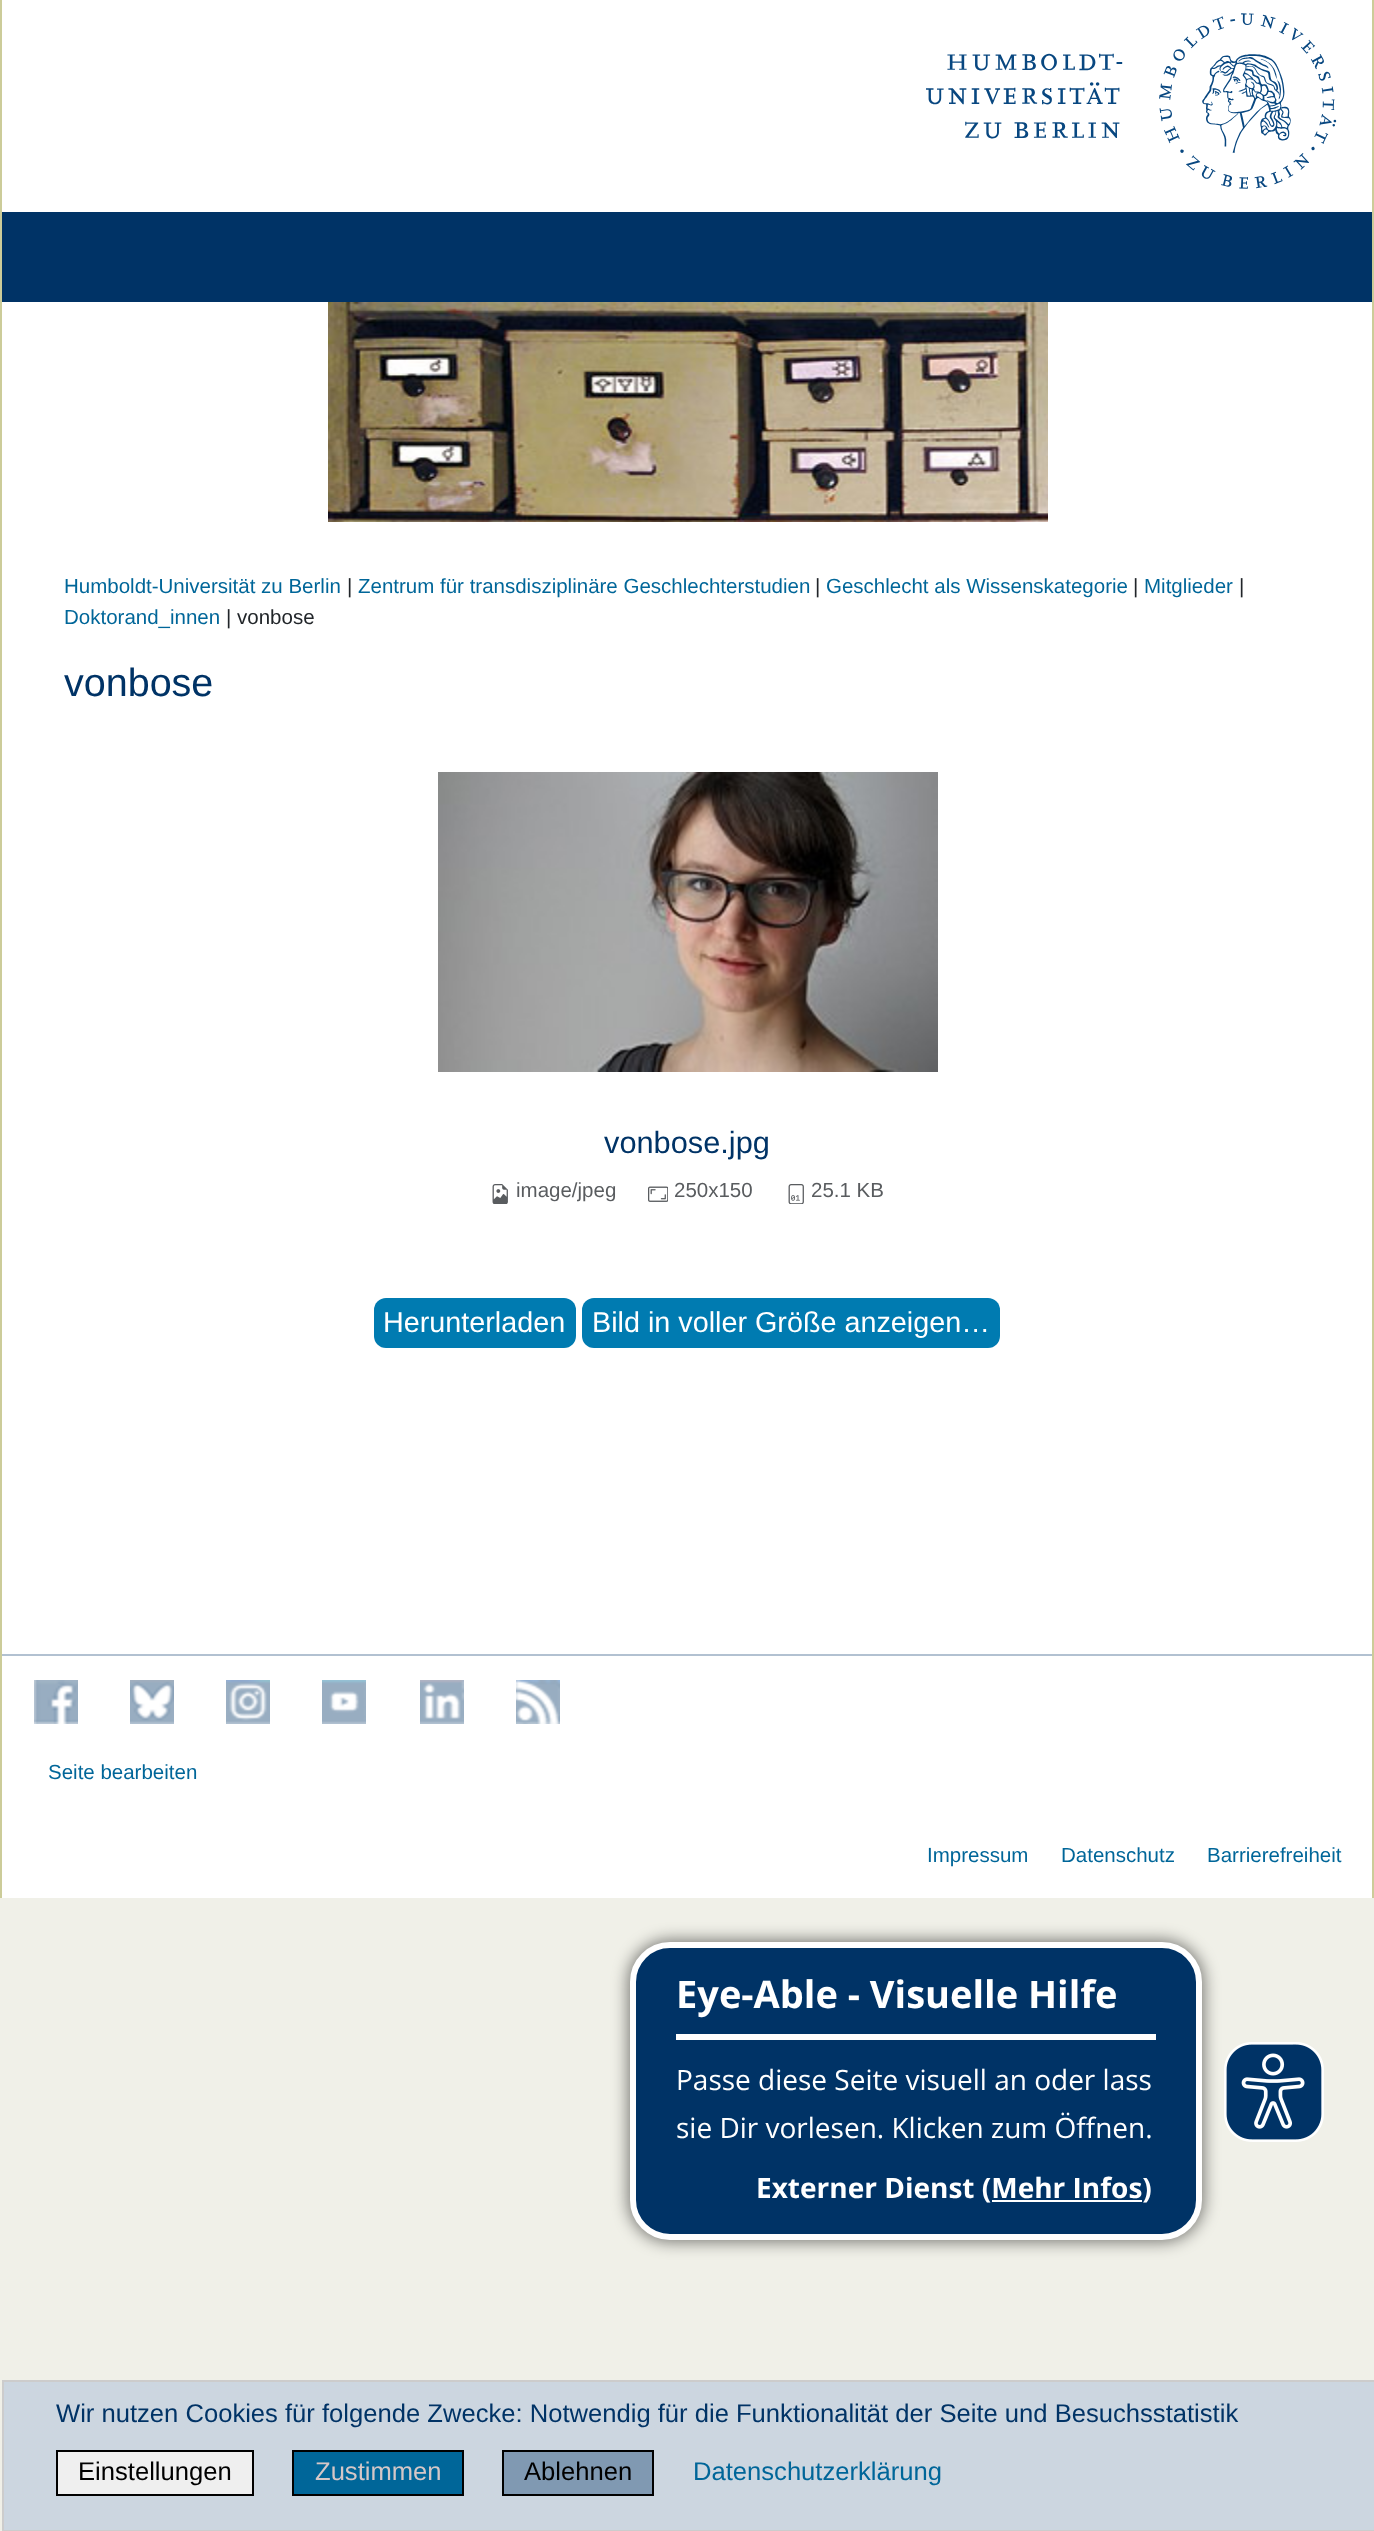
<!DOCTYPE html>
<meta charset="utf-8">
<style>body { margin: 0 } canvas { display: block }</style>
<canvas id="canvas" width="1374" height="2531"></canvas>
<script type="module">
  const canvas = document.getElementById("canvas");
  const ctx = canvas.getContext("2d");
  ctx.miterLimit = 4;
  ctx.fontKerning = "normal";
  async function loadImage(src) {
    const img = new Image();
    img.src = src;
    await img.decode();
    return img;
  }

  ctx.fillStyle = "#f0f0e8";
  ctx.fillRect(0, 0, 1374, 2531);
  ctx.fillStyle = "#ffffff";
  ctx.fillRect(2, 0, 1370, 1898);
  ctx.drawImage(await loadImage("img1.png"), 926, 13, 411, 176);
  ctx.fillStyle = "#003366";
  ctx.fillRect(2, 212, 1370, 90);
  ctx.drawImage(await loadImage("img2.png"), 328, 302, 720, 220);
  ctx.fillStyle = "#cccc99";
  ctx.fillRect(1372, 0, 2, 1898);
  ctx.fillRect(0, 0, 2, 1898);
  ctx.font = "20.5px Liberation Sans";
  ctx.fillStyle = "#006699";
  ctx.fillText("Humboldt-Universität zu Berlin", 64, 593);
  ctx.fillStyle = "#212529";
  ctx.fillText("|", 347, 593);
  ctx.fillStyle = "#006699";
  ctx.fillText("Zentrum für transdisziplinäre Geschlechterstudien", 358, 593);
  ctx.fillStyle = "#212529";
  ctx.fillText("|", 815, 593);
  ctx.fillStyle = "#006699";
  ctx.fillText("Geschlecht als Wissenskategorie", 826, 593);
  ctx.fillStyle = "#212529";
  ctx.fillText("|", 1133, 593);
  ctx.fillStyle = "#006699";
  ctx.fillText("Mitglieder", 1144, 593);
  ctx.fillStyle = "#212529";
  ctx.fillText("|", 1239, 593);
  ctx.fillStyle = "#006699";
  ctx.fillText("Doktorand_innen", 64, 624);
  ctx.fillStyle = "#212529";
  ctx.fillText("| vonbose", 226, 624);
  ctx.font = "39.5px Liberation Sans";
  ctx.fillStyle = "#003366";
  ctx.fillText("vonbose", 64, 696);
  ctx.drawImage(await loadImage("img3.png"), 438, 772, 500, 300);
  ctx.font = "30.75px Liberation Sans";
  ctx.fillText("vonbose.jpg", 604, 1153);
  ctx.drawImage(await loadImage("img4.png"), 492, 1184, 16, 20);
  ctx.font = "20.5px Liberation Sans";
  ctx.fillStyle = "#595c5f";
  ctx.fillText("image/jpeg", 516, 1197);
  ctx.drawImage(await loadImage("img5.png"), 648, 1186, 20, 16);
  ctx.fillText("250x150", 674, 1197);
  ctx.drawImage(await loadImage("img6.png"), 788, 1184, 16, 20);
  ctx.fillText("25.1 KB", 811, 1197);
  ctx.fillStyle = "#007bb1";
  ctx.beginPath();
  ctx.roundRect(374, 1298, 202, 50, 12);
  ctx.fill();
  ctx.font = "28.75px Liberation Sans";
  ctx.fillStyle = "#ffffff";
  ctx.fillText("Herunterladen", 383, 1332);
  ctx.fillStyle = "#007bb1";
  ctx.beginPath();
  ctx.roundRect(582, 1298, 418, 50, 12);
  ctx.fill();
  ctx.fillStyle = "#ffffff";
  ctx.fillText("Bild in voller Größe anzeigen…", 592, 1332);
  ctx.fillStyle = "#b2c1d1";
  ctx.fillRect(2, 1654, 1370, 2);
  ctx.drawImage(await loadImage("img7.png"), 34, 1680, 44, 44);
  ctx.drawImage(await loadImage("img8.png"), 130, 1680, 44, 44);
  ctx.drawImage(await loadImage("img9.png"), 226, 1680, 44, 44);
  ctx.drawImage(await loadImage("img10.png"), 322, 1680, 44, 44);
  ctx.drawImage(await loadImage("img11.png"), 420, 1680, 44, 44);
  ctx.drawImage(await loadImage("img12.png"), 516, 1680, 44, 44);
  ctx.font = "20.5px Liberation Sans";
  ctx.fillStyle = "#006699";
  ctx.fillText("Seite bearbeiten", 48, 1779);
  ctx.fillText("Impressum", 927, 1862);
  ctx.fillText("Datenschutz", 1061, 1862);
  ctx.fillText("Barrierefreiheit", 1207, 1862);
  ctx.fillStyle = "#ccd6e0";
  ctx.beginPath();
  ctx.rect(3, 2381, 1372, 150);
  ctx.fill();
  ctx.strokeStyle = "#cccccc";
  ctx.lineWidth = 2;
  ctx.stroke();
  ctx.font = "25.6px Liberation Sans";
  ctx.fillStyle = "#003366";
  ctx.fillText("Wir nutzen Cookies für folgende Zwecke: Notwendig für die Funktionalität der Seite und Besuchsstatistik", 56, 2422);
  ctx.fillStyle = "#efefef";
  ctx.beginPath();
  ctx.rect(57, 2451, 196, 44);
  ctx.fill();
  ctx.strokeStyle = "#000000";
  ctx.stroke();
  ctx.fillStyle = "#000000";
  ctx.fillText("Einstellungen", 78, 2480);
  ctx.fillStyle = "#006699";
  ctx.beginPath();
  ctx.rect(293, 2451, 170, 44);
  ctx.fill();
  ctx.stroke();
  ctx.fillStyle = "#d5c7c7";
  ctx.fillText("Zustimmen", 315, 2480);
  ctx.fillStyle = "#8099b2";
  ctx.beginPath();
  ctx.rect(503, 2451, 150, 44);
  ctx.fill();
  ctx.stroke();
  ctx.fillStyle = "#000000";
  ctx.fillText("Ablehnen", 524, 2480);
  ctx.fillStyle = "#006699";
  ctx.fillText("Datenschutzerklärung", 693, 2480);
  ctx.fillStyle = "rgba(0, 0, 0, 0.5)";
  ctx.filter = "blur(8px)";
  ctx.beginPath();
  ctx.roundRect(628, 1940, 576, 302, 42);
  ctx.fill();
  ctx.filter = "none";
  ctx.fillStyle = "#003366";
  ctx.beginPath();
  ctx.roundRect(633, 1945, 566, 292, 37);
  ctx.fill();
  ctx.strokeStyle = "#ffffff";
  ctx.lineWidth = 6;
  ctx.stroke();
  ctx.fillStyle = "#ffffff";
  ctx.fillRect(676, 2034, 480, 6);
  ctx.font = "bold 38px Open Sans";
  ctx.fillText("Eye-Able - Visuelle Hilfe", 676, 2008);
  ctx.font = "28px Open Sans";
  ctx.fillText("Passe diese Seite visuell an oder lass", 676, 2090);
  ctx.fillText("sie Dir vorlesen. Klicken zum Öffnen.", 676, 2138);
  ctx.font = "bold 28px Open Sans";
  ctx.fillText("Externer Dienst (Mehr Infos)", 756, 2198);
  ctx.fillRect(992, 2200, 150, 2);
  ctx.drawImage(await loadImage("img13.png"), 1224, 2042, 100, 100);
</script>
